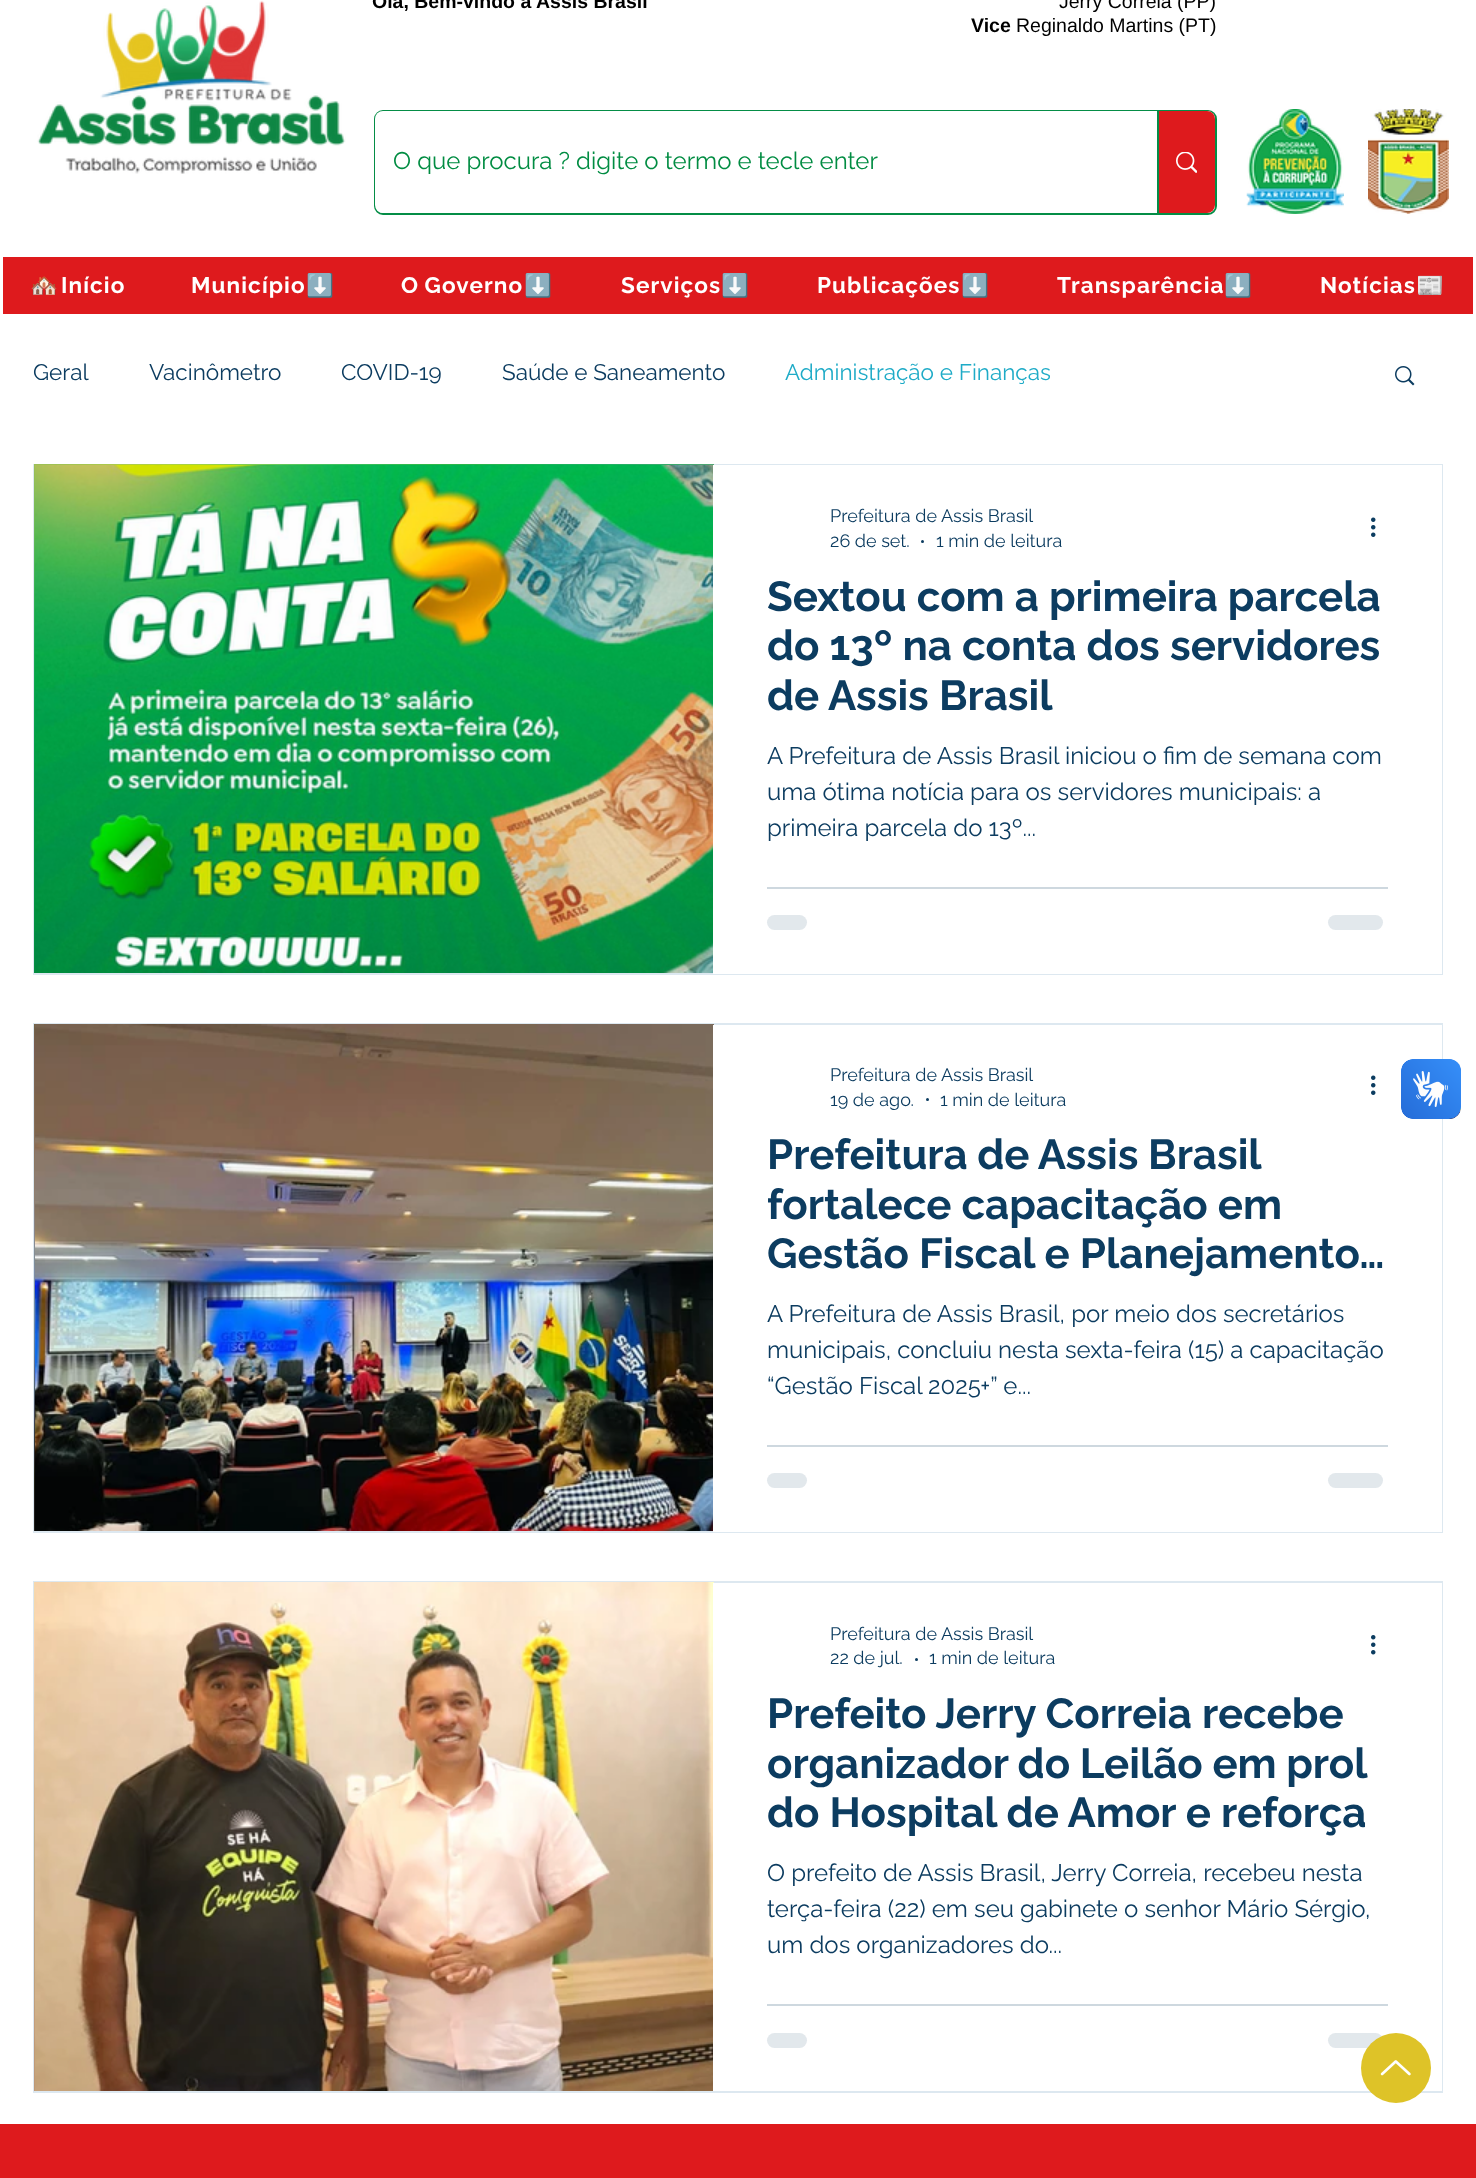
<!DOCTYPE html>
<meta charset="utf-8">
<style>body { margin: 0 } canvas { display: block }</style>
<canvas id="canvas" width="1476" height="2178"></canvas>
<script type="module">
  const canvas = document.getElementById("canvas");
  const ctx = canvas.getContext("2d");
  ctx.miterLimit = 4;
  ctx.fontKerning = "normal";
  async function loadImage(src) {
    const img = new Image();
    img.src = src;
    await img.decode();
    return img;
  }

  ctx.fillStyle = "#ffffff";
  ctx.fillRect(0, 0, 1476, 2178);
  ctx.drawImage(await loadImage("img1.png"), 37, 0, 309, 174);
  ctx.font = "bold 19.5px Liberation Sans";
  ctx.fillStyle = "#000000";
  ctx.fillText("Olá, Bem-vindo a Assis Brasil", 372, 8);
  ctx.font = "19.5px Liberation Sans";
  ctx.fillText("Jerry Correia (PP)", 1059, 8);
  ctx.font = "bold 19.5px Liberation Sans";
  ctx.fillText("Vice", 971, 32);
  ctx.font = "19.5px Liberation Sans";
  ctx.fillText("Reginaldo Martins (PT)", 1016, 32);
  ctx.beginPath();
  ctx.roundRect(375, 111, 841, 103, 8);
  ctx.strokeStyle = "#048d46";
  ctx.lineWidth = 2;
  ctx.stroke();
  ctx.fillStyle = "#ffffff";
  ctx.beginPath();
  ctx.roundRect(375, 111, 840, 102, 8);
  ctx.fill();
  ctx.font = "24px Raleway";
  ctx.fillStyle = "#018c42";
  ctx.fillText("O que procura ? digite o termo e tecle enter", 393, 169);
  ctx.fillStyle = "#de1a1d";
  ctx.beginPath();
  ctx.roundRect(1157, 111, 58, 102, [0, 8, 8, 0]);
  ctx.fill();
  ctx.fillStyle = "#048d46";
  ctx.fillRect(1157, 111, 2, 102);
  ctx.drawImage(await loadImage("img2.png"), 1176, 152, 21, 21);
  ctx.drawImage(await loadImage("img3.png"), 1246, 109, 98, 105);
  ctx.drawImage(await loadImage("img4.png"), 1368, 109, 81, 105);
  ctx.fillStyle = "#de1a1d";
  ctx.fillRect(3, 257, 1470, 57);
  ctx.letterSpacing = "1.1px";
  ctx.font = "bold 22.5px Noto Color Emoji";
  ctx.fillStyle = "#ffffff";
  ctx.fillText("🏘️", 30, 293);
  ctx.font = "bold 22.5px Raleway";
  ctx.fillText("Início", 61, 293);
  ctx.fillText("Município", 191, 293);
  ctx.font = "bold 22.5px Noto Color Emoji";
  ctx.fillText("⬇️", 306, 293);
  ctx.wordSpacing = "-1px";
  ctx.font = "bold 22.5px Raleway";
  ctx.fillText("O Governo", 401, 293);
  ctx.wordSpacing = "0px";
  ctx.font = "bold 22.5px Noto Color Emoji";
  ctx.fillText("⬇️", 524, 293);
  ctx.font = "bold 22.5px Raleway";
  ctx.fillText("Serviços", 621, 293);
  ctx.font = "bold 22.5px Noto Color Emoji";
  ctx.fillText("⬇️", 721, 293);
  ctx.font = "bold 22.5px Raleway";
  ctx.fillText("Publicações", 817, 293);
  ctx.font = "bold 22.5px Noto Color Emoji";
  ctx.fillText("⬇️", 961, 293);
  ctx.font = "bold 22.5px Raleway";
  ctx.fillText("Transparência", 1057, 293);
  ctx.font = "bold 22.5px Noto Color Emoji";
  ctx.fillText("⬇️", 1224, 293);
  ctx.font = "bold 22.5px Raleway";
  ctx.fillText("Notícias", 1320, 293);
  ctx.font = "bold 22.5px Noto Color Emoji";
  ctx.fillText("📰", 1416, 293);
  ctx.letterSpacing = "0px";
  ctx.font = "22.5px Raleway";
  ctx.fillStyle = "#0c3c60";
  ctx.fillText("Geral", 33, 380);
  ctx.fillText("Vacinômetro", 149, 380);
  ctx.fillText("COVID-19", 341, 380);
  ctx.fillText("Saúde e Saneamento", 502, 380);
  ctx.fillStyle = "#1eabc7";
  ctx.fillText("Administração e Finanças", 785, 380);
  ctx.drawImage(await loadImage("img5.png"), 1395, 366, 20, 20);
  ctx.strokeStyle = "#dde8f0";
  ctx.strokeRect(34, 465, 1408, 509);
  ctx.drawImage(await loadImage("img6.png"), 34, 464, 680, 509);
  ctx.drawImage(await loadImage("img7.png"), 35, 465, 678, 508);
  ctx.fillStyle = "#ffffff";
  ctx.fillRect(713, 465, 729, 509);
  ctx.font = "18px Raleway";
  ctx.fillStyle = "#0c3c60";
  ctx.fillText("Prefeitura de Assis Brasil", 830, 522);
  ctx.fillText("26 de set.", 830, 547);
  ctx.beginPath();
  ctx.arc(922.5, 541.5, 1.5, 0, Math.PI * 2);
  ctx.fill();
  ctx.fillText("1 min de leitura", 936, 547);
  ctx.drawImage(await loadImage("img8.png"), 1371, 517, 5, 20);
  ctx.font = "bold 42px Raleway";
  ctx.fillText("Sextou com a primeira parcela", 767, 611);
  ctx.fillText("do 13º na conta dos servidores", 767, 660);
  ctx.fillText("de Assis Brasil", 767, 710);
  ctx.font = "24px Raleway";
  ctx.fillText("A Prefeitura de Assis Brasil iniciou o fim de semana com", 767, 764);
  ctx.fillText("uma ótima notícia para os servidores municipais: a", 767, 800);
  ctx.fillText("primeira parcela do 13º...", 767, 836);
  ctx.fillStyle = "#ced8df";
  ctx.fillRect(767, 887, 621, 2);
  ctx.fillStyle = "#e2e8ec";
  ctx.beginPath();
  ctx.roundRect(767, 915, 40, 15, 7.5);
  ctx.fill();
  ctx.beginPath();
  ctx.roundRect(1328, 915, 55, 15, 7.5);
  ctx.fill();
  ctx.strokeRect(34, 1024, 1408, 508);
  ctx.drawImage(await loadImage("img9.png"), 34, 1024, 1, 507);
  ctx.drawImage(await loadImage("img10.png"), 35, 1024, 679, 507);
  ctx.fillStyle = "#ffffff";
  ctx.fillRect(713, 1025, 729, 507);
  ctx.font = "18px Raleway";
  ctx.fillStyle = "#0c3c60";
  ctx.fillText("Prefeitura de Assis Brasil", 830, 1081);
  ctx.fillText("19 de ago.", 830, 1106);
  ctx.beginPath();
  ctx.arc(927.5, 1099.5, 1.5, 0, Math.PI * 2);
  ctx.fill();
  ctx.fillText("1 min de leitura", 940, 1106);
  ctx.drawImage(await loadImage("img8.png"), 1371, 1075, 5, 20);
  ctx.wordSpacing = "-0.5px";
  ctx.font = "bold 42px Raleway";
  ctx.fillText("Prefeitura de Assis Brasil", 767, 1169);
  ctx.wordSpacing = "0px";
  ctx.fillText("fortalece capacitação em", 767, 1219);
  ctx.fillText("Gestão Fiscal e Planejamento…", 767, 1268);
  ctx.font = "24px Raleway";
  ctx.fillText("A Prefeitura de Assis Brasil, por meio dos secretários", 767, 1322);
  ctx.fillText("municipais, concluiu nesta sexta-feira (15) a capacitação", 767, 1358);
  ctx.fillText("“Gestão Fiscal 2025+” e...", 767, 1394);
  ctx.fillStyle = "#ced8df";
  ctx.fillRect(767, 1445, 621, 2);
  ctx.fillStyle = "#e2e8ec";
  ctx.beginPath();
  ctx.roundRect(767, 1473, 40, 15, 7.5);
  ctx.fill();
  ctx.beginPath();
  ctx.roundRect(1328, 1473, 55, 15, 7.5);
  ctx.fill();
  ctx.strokeRect(34, 1582, 1408, 510);
  ctx.drawImage(await loadImage("img11.png"), 34, 1582, 1, 509);
  ctx.drawImage(await loadImage("img12.png"), 35, 1582, 679, 509);
  ctx.fillStyle = "#ffffff";
  ctx.fillRect(713, 1583, 729, 508);
  ctx.font = "18px Raleway";
  ctx.fillStyle = "#0c3c60";
  ctx.fillText("Prefeitura de Assis Brasil", 830, 1640);
  ctx.fillText("22 de jul.", 830, 1664);
  ctx.beginPath();
  ctx.arc(916.5, 1659.5, 1.5, 0, Math.PI * 2);
  ctx.fill();
  ctx.fillText("1 min de leitura", 929, 1664);
  ctx.drawImage(await loadImage("img13.png"), 1371, 1635, 5, 20);
  ctx.font = "bold 42px Raleway";
  ctx.fillText("Prefeito Jerry Correia recebe", 767, 1728);
  ctx.wordSpacing = "-0.5px";
  ctx.fillText("organizador do Leilão em prol", 767, 1778);
  ctx.wordSpacing = "0px";
  ctx.fillText("do Hospital de Amor e reforça", 767, 1827);
  ctx.font = "24px Raleway";
  ctx.fillText("O prefeito de Assis Brasil, Jerry Correia, recebeu nesta", 767, 1881);
  ctx.fillText("terça-feira (22) em seu gabinete o senhor Mário Sérgio,", 767, 1917);
  ctx.fillText("um dos organizadores do...", 767, 1953);
  ctx.fillStyle = "#ced8df";
  ctx.fillRect(767, 2004, 621, 2);
  ctx.fillStyle = "#e2e8ec";
  ctx.beginPath();
  ctx.roundRect(767, 2033, 40, 15, 7.5);
  ctx.fill();
  ctx.beginPath();
  ctx.roundRect(1328, 2033, 55, 15, 7.5);
  ctx.fill();
  ctx.fillStyle = "#dec328";
  ctx.beginPath();
  ctx.arc(1396, 2068, 35, 0, Math.PI * 2);
  ctx.fill();
  ctx.drawImage(await loadImage("img14.png"), 1380, 2060, 31, 16);
  ctx.fillStyle = "#de1a1d";
  ctx.fillRect(0, 2124, 1476, 54);
  ctx.drawImage(await loadImage("img15.png"), 1401, 1059, 60, 60);
  ctx.drawImage(await loadImage("img16.png"), 1401, 1059, 60, 60);
</script>
